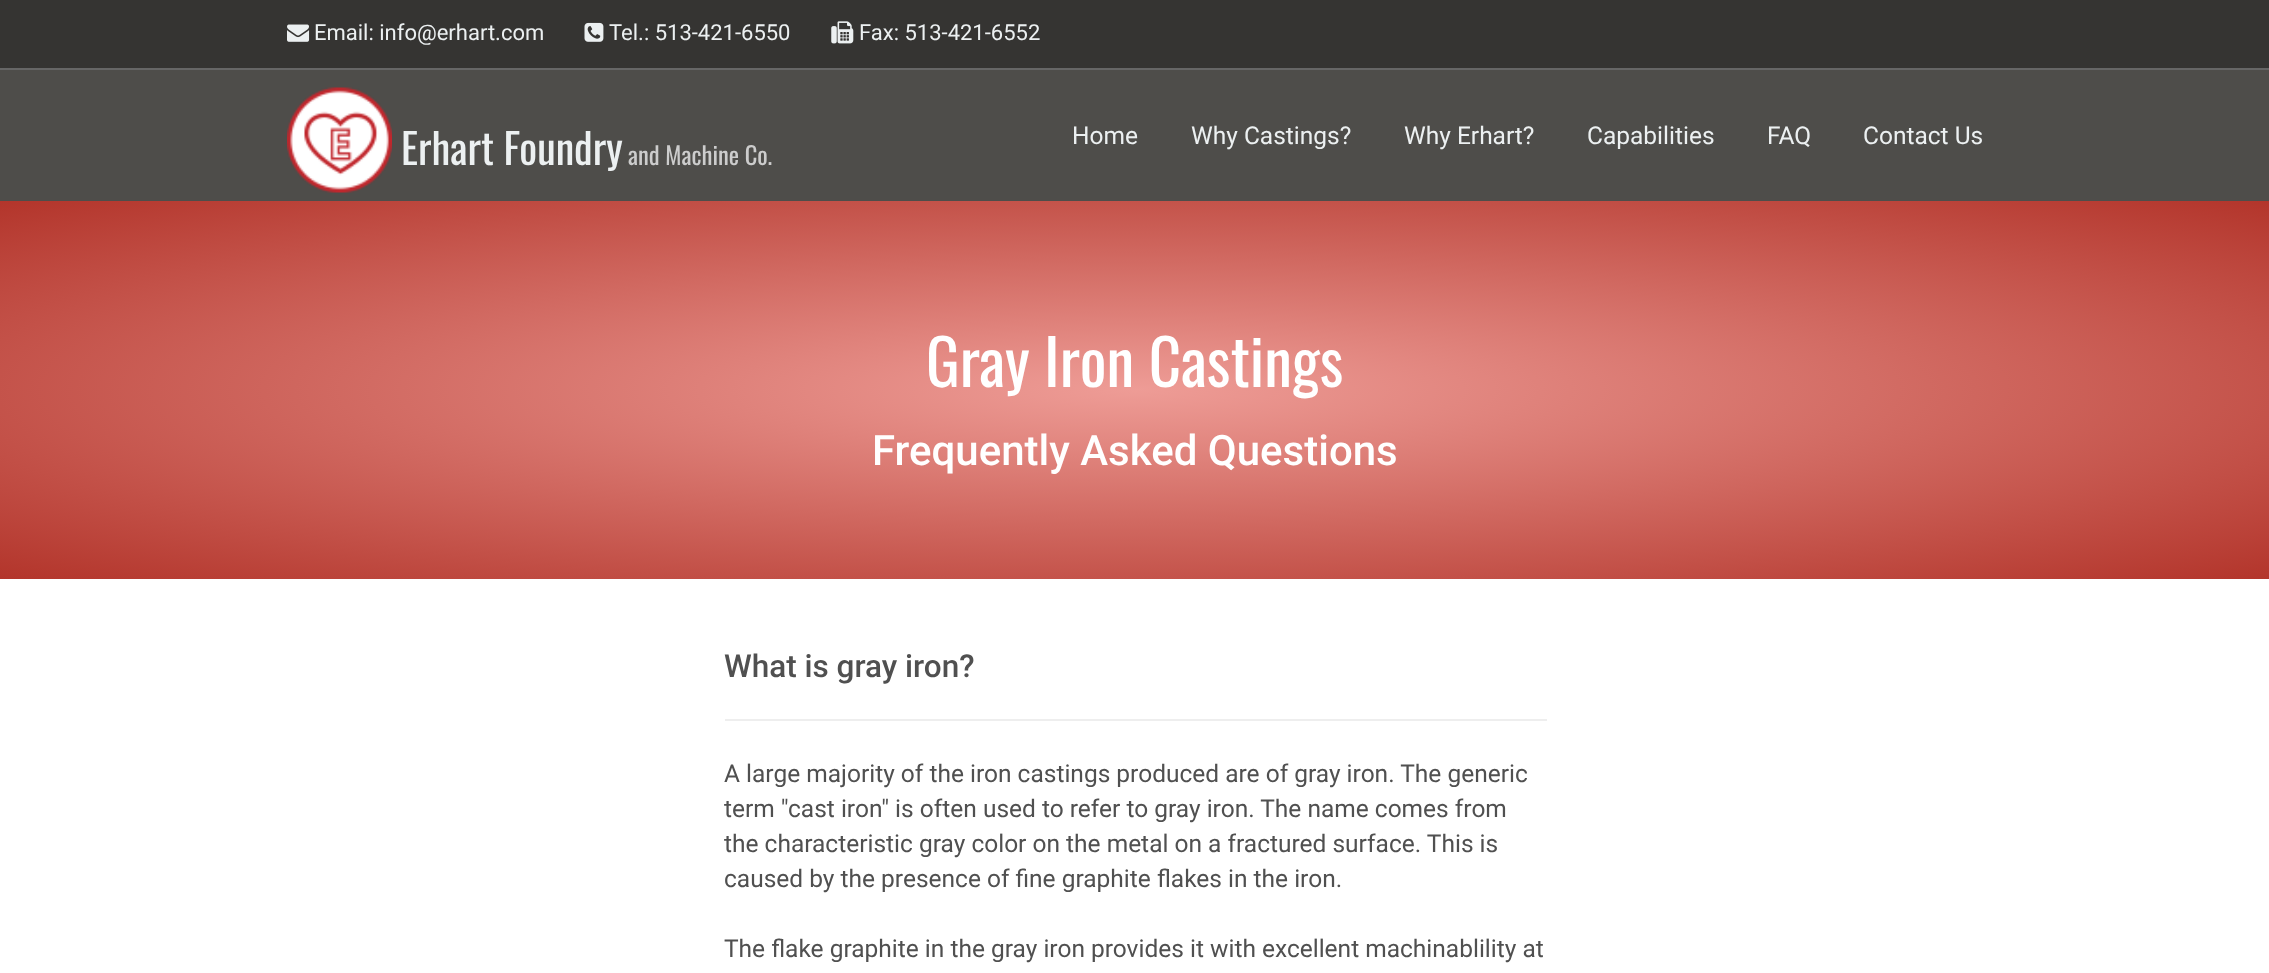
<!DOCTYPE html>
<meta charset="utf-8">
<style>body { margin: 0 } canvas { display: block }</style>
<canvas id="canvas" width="2269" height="973"></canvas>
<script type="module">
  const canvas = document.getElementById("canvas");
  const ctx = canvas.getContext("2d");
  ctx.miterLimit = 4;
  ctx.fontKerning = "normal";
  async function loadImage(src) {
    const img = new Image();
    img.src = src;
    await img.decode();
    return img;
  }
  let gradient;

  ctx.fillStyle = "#ffffff";
  ctx.fillRect(0, 0, 2269, 973);
  ctx.fillStyle = "#353432";
  ctx.fillRect(0, 0, 2269, 68);
  ctx.fillStyle = "#666666";
  ctx.fillRect(0, 68, 2269, 2);
  ctx.drawImage(await loadImage("img1.png"), 287, 24, 23, 18);
  ctx.font = "22px Roboto";
  ctx.fillStyle = "#ecf0f1";
  ctx.fillText("Email: info@erhart.com", 314, 40);
  ctx.drawImage(await loadImage("img2.png"), 584, 22, 20, 20);
  ctx.fillText("Tel.: 513-421-6550", 609, 40);
  ctx.drawImage(await loadImage("img3.png"), 831, 21, 23, 23);
  ctx.fillText("Fax: 513-421-6552", 859, 40);
  ctx.fillStyle = "#4e4d4a";
  ctx.fillRect(0, 70, 2269, 131);
  ctx.drawImage(await loadImage("img4.png"), 287, 87, 105, 106);
  ctx.font = "42px Oswald";
  ctx.fillStyle = "#ecf0f1";
  ctx.fillText("Erhart Foundry", 401, 165);
  ctx.font = "24.5px Oswald";
  ctx.fillStyle = "#cccccc";
  ctx.fillText("and Machine Co.", 628, 165);
  ctx.font = "24.5px Roboto";
  ctx.fillStyle = "#ecf0f1";
  ctx.fillText("Home", 1072, 144);
  ctx.fillText("Why Castings?", 1191, 144);
  ctx.fillText("Why Erhart?", 1404, 144);
  ctx.fillText("Capabilities", 1587, 144);
  ctx.fillText("FAQ", 1767, 144);
  ctx.fillText("Contact Us", 1863, 144);
  gradient = ctx.createRadialGradient(1135, 2344.38, 0, 1135, 2344.38, 1605);
  gradient.addColorStop(0, "#ee9c96");
  gradient.addColorStop(1, "#b3352b");
  ctx.fillStyle = gradient;
  ctx.beginPath();
  ctx.rect(0, 201, 2269, 378);
  ctx.save();
  ctx.clip();
  ctx.scale(1, 267 / 1605);
  ctx.fillRect(0, 0, 2269, 5849);
  ctx.restore();
  ctx.font = "63px Oswald";
  ctx.fillStyle = "#ffffff";
  ctx.fillText("Gray Iron Castings", 926, 387);
  ctx.font = "500 42px Roboto";
  ctx.fillText("Frequently Asked Questions", 872, 465);
  ctx.font = "500 31.5px Roboto";
  ctx.fillStyle = "#505050";
  ctx.fillText("What is gray iron?", 724, 677);
  ctx.fillStyle = "#eeeeee";
  ctx.fillRect(725, 719, 822, 2);
  ctx.font = "24.5px Roboto";
  ctx.fillStyle = "#505050";
  ctx.fillText("A large majority of the iron castings produced are of gray iron. The generic", 724, 782);
  ctx.fillText("term \"cast iron\" is often used to refer to gray iron. The name comes from", 724, 817);
  ctx.fillText("the characteristic gray color on the metal on a fractured surface. This is", 724, 852);
  ctx.fillText("caused by the presence of fine graphite flakes in the iron.", 724, 887);
  ctx.fillText("The flake graphite in the gray iron provides it with excellent machinablility at", 724, 957);
</script>
